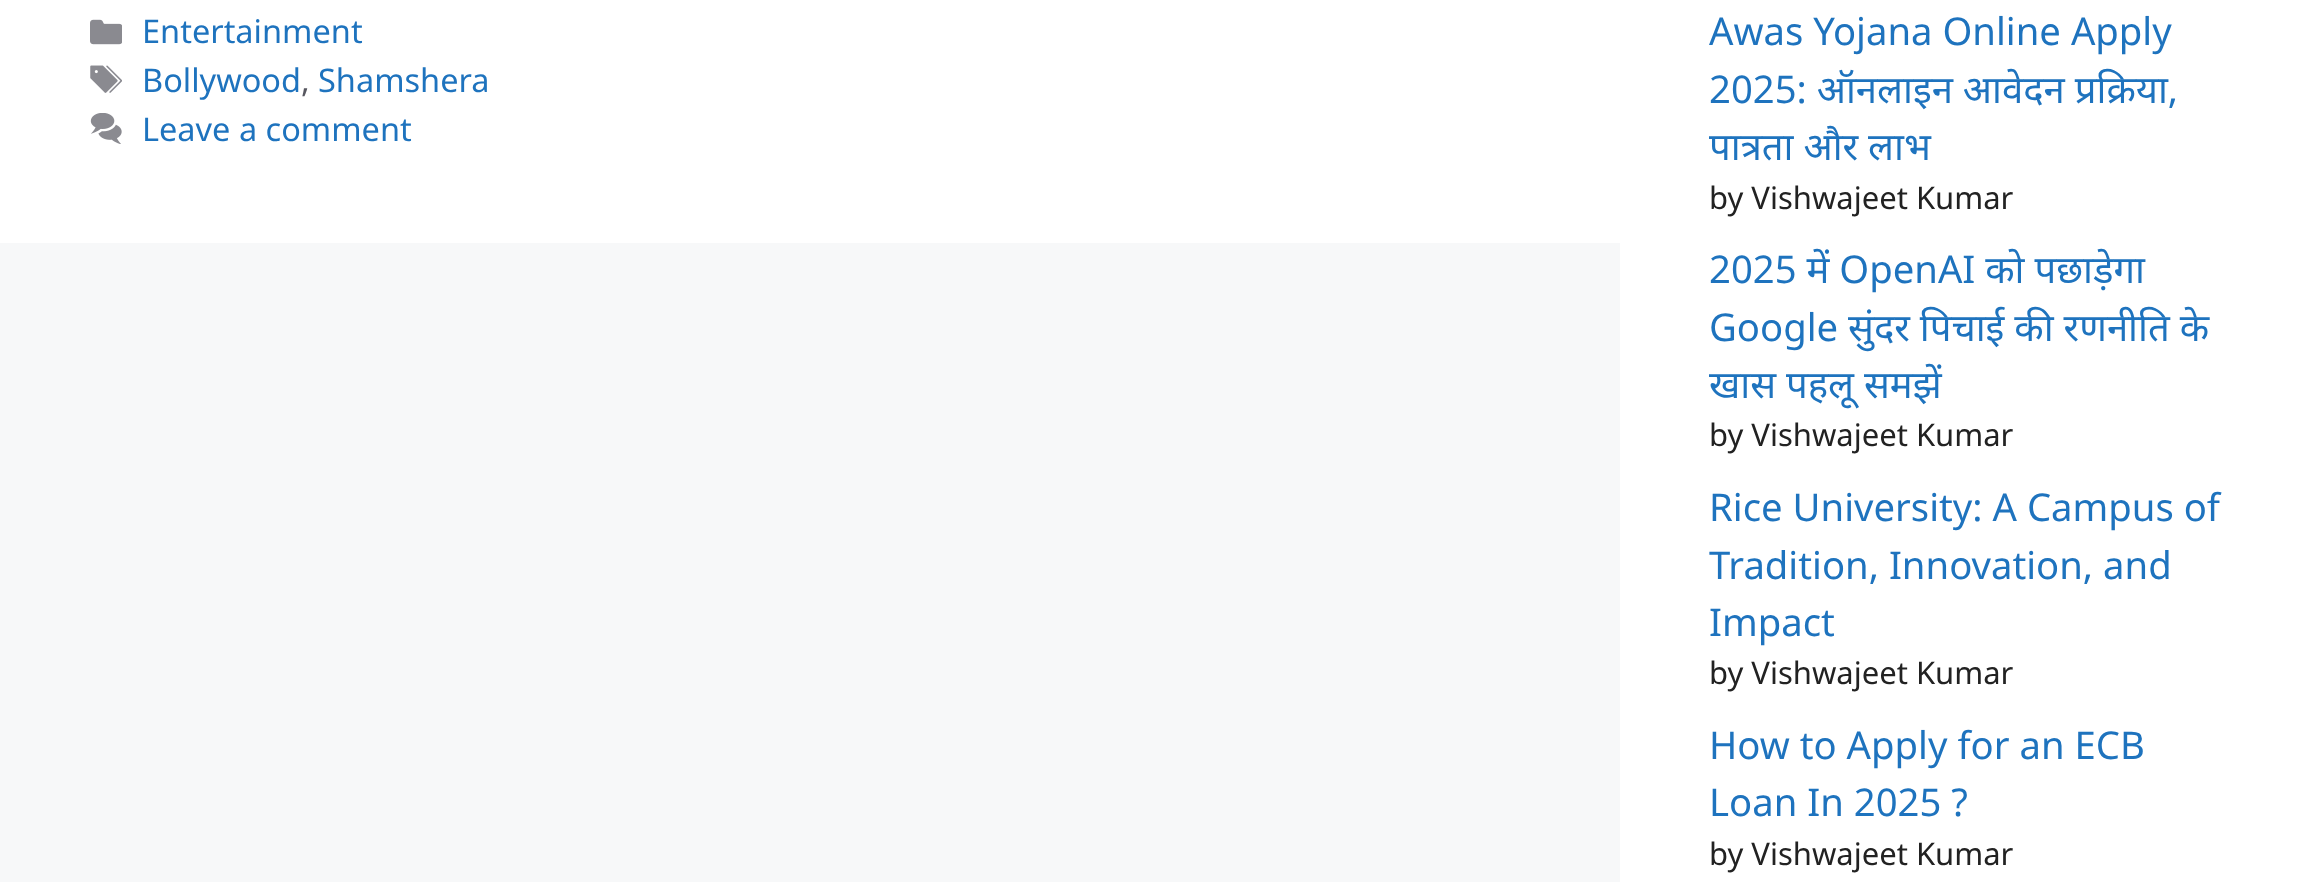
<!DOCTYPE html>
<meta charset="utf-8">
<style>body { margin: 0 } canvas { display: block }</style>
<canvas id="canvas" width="2311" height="882"></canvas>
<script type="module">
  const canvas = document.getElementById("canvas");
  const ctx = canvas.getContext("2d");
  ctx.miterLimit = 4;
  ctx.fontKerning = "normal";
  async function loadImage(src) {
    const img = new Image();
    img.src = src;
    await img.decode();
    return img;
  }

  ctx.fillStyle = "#f7f8f9";
  ctx.fillRect(0, 0, 2311, 882);
  ctx.fillStyle = "#ffffff";
  ctx.fillRect(0, 0, 1620, 243);
  ctx.drawImage(await loadImage("img1.png"), 90, 19, 32, 26);
  ctx.font = "32.5px Noto Sans";
  ctx.fillStyle = "#1e73be";
  ctx.fillText("Entertainment", 142, 43);
  ctx.drawImage(await loadImage("img2.png"), 90, 65, 32, 28);
  ctx.fillText("Bollywood", 142, 92);
  ctx.fillStyle = "#575760";
  ctx.fillText(",", 301, 92);
  ctx.fillStyle = "#1e73be";
  ctx.fillText("Shamshera", 318, 92);
  ctx.drawImage(await loadImage("img3.png"), 90, 113, 32, 31);
  ctx.fillText("Leave a comment", 142, 141);
  ctx.fillStyle = "#ffffff";
  ctx.fillRect(1620, 0, 691, 882);
  ctx.font = "38.25px Noto Sans";
  ctx.fillStyle = "#1e73be";
  ctx.fillText("Awas Yojana Online Apply", 1709, 45);
  ctx.fillText("2025: ऑनलाइन आवेदन प्रक्रिया,", 1709, 103);
  ctx.fillText("पात्रता और लाभ", 1709, 160);
  ctx.font = "31px Noto Sans";
  ctx.fillStyle = "#222222";
  ctx.fillText("by Vishwajeet Kumar", 1709, 209);
  ctx.font = "38.25px Noto Sans";
  ctx.fillStyle = "#1e73be";
  ctx.fillText("2025 में OpenAI को पछाड़ेगा", 1709, 283);
  ctx.fillText("Google सुंदर पिचाई की रणनीति के", 1709, 341);
  ctx.fillText("खास पहलू समझें", 1709, 398);
  ctx.font = "31px Noto Sans";
  ctx.fillStyle = "#222222";
  ctx.fillText("by Vishwajeet Kumar", 1709, 446);
  ctx.font = "38.25px Noto Sans";
  ctx.fillStyle = "#1e73be";
  ctx.fillText("Rice University: A Campus of", 1709, 521);
  ctx.fillText("Tradition, Innovation, and", 1709, 579);
  ctx.fillText("Impact", 1709, 636);
  ctx.font = "31px Noto Sans";
  ctx.fillStyle = "#222222";
  ctx.fillText("by Vishwajeet Kumar", 1709, 684);
  ctx.font = "38.25px Noto Sans";
  ctx.fillStyle = "#1e73be";
  ctx.fillText("How to Apply for an ECB", 1709, 759);
  ctx.fillText("Loan In 2025 ?", 1709, 816);
  ctx.font = "31px Noto Sans";
  ctx.fillStyle = "#222222";
  ctx.fillText("by Vishwajeet Kumar", 1709, 865);
</script>
